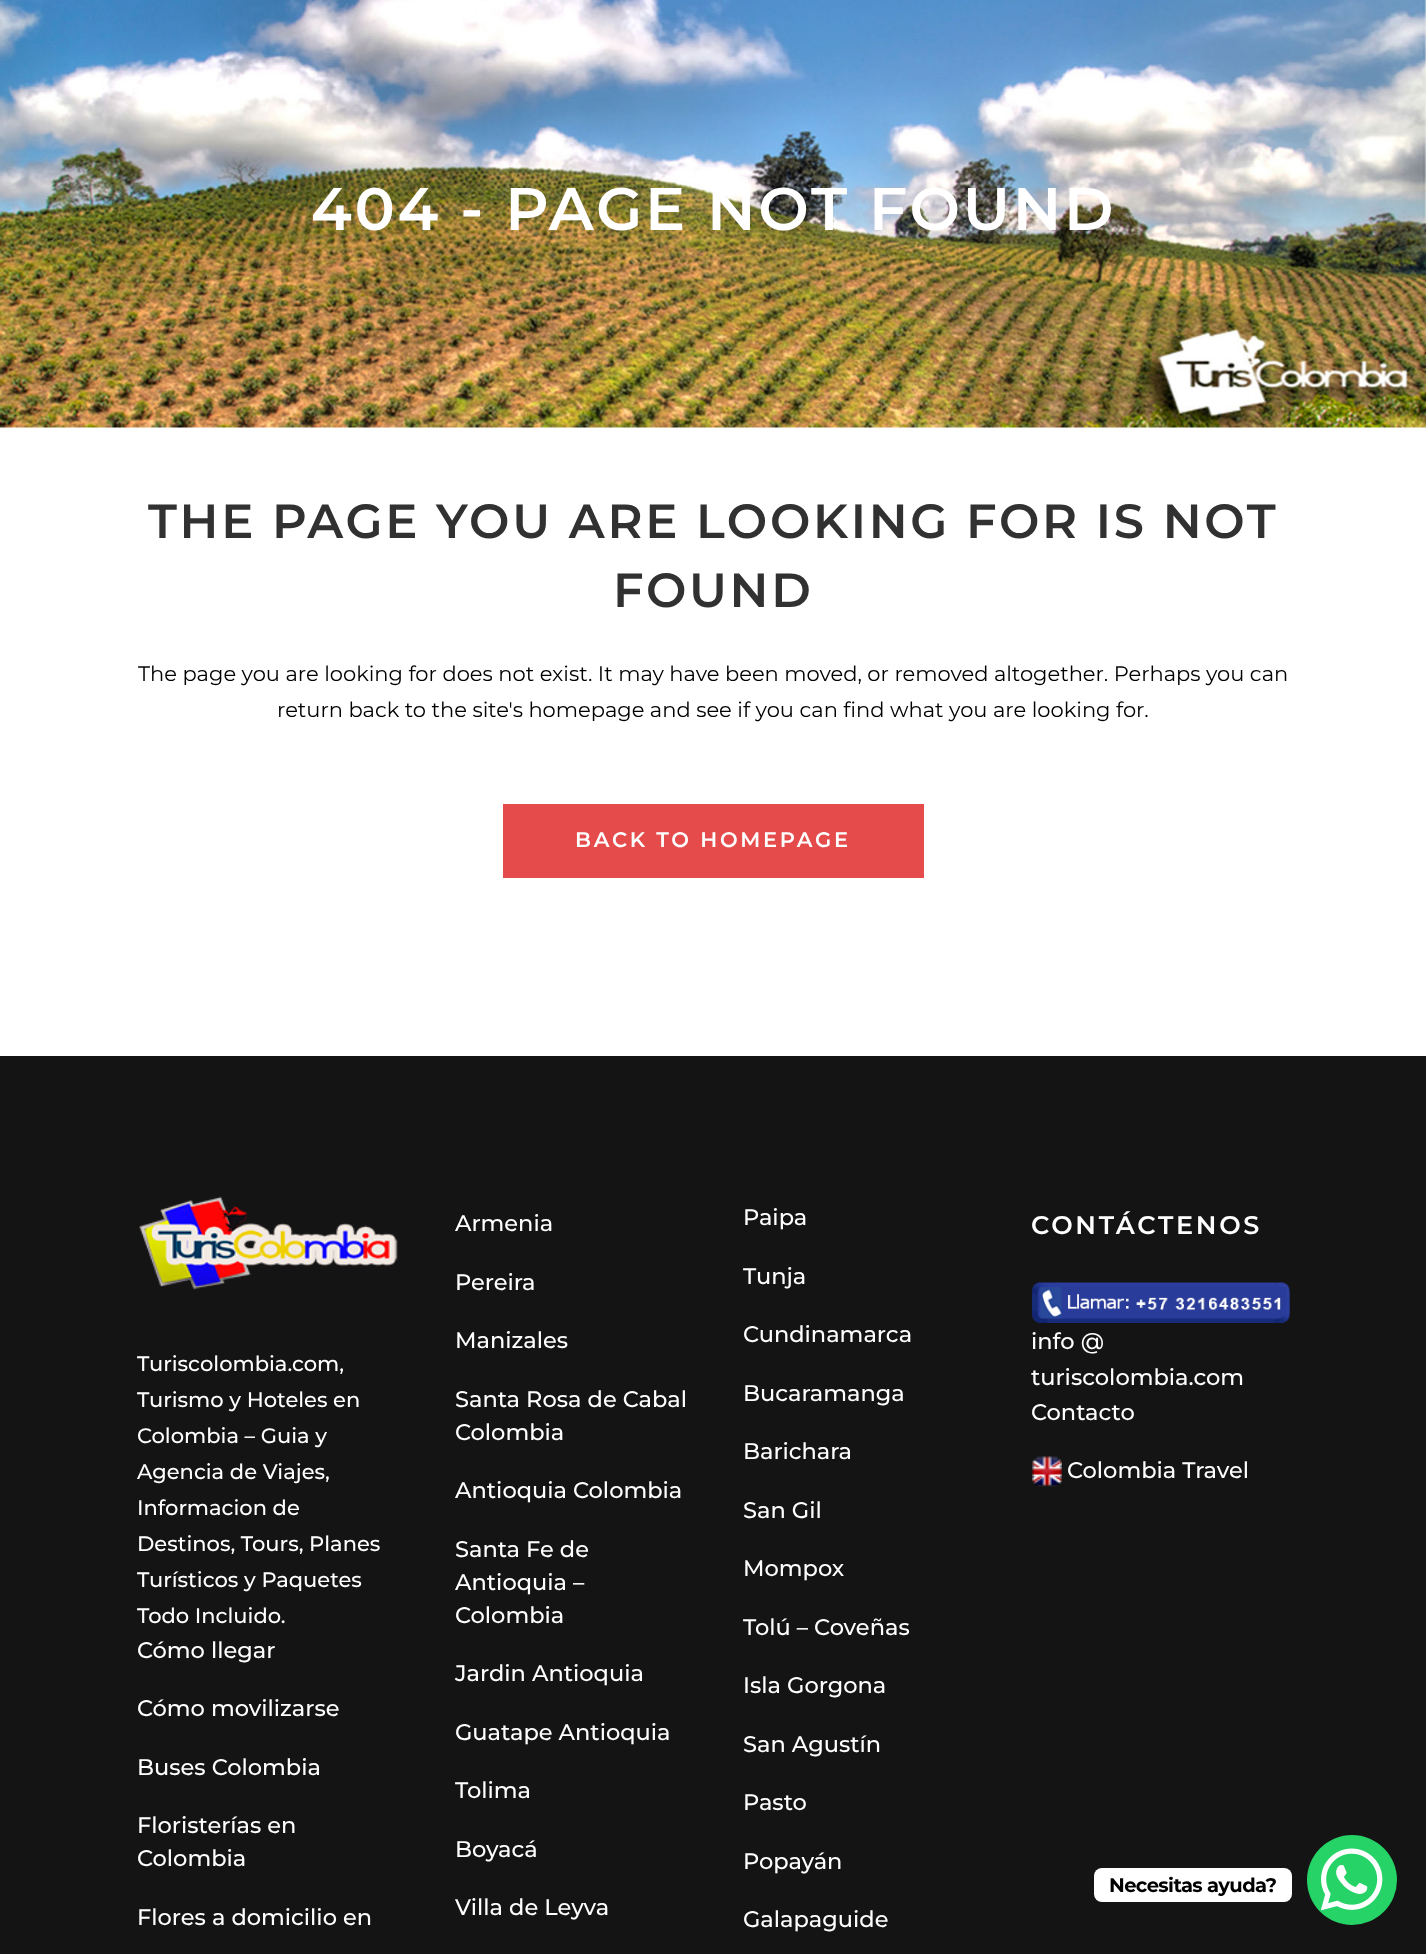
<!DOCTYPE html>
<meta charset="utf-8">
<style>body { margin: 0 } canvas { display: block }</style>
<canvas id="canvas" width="1426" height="1954"></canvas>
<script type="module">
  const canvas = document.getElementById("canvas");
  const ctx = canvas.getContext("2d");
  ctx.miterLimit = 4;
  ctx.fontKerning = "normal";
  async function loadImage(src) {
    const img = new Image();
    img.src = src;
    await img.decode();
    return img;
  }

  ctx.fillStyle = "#ffffff";
  ctx.fillRect(0, 0, 1426, 1954);
  ctx.drawImage(await loadImage("img1.png"), 0, 0, 1426, 428);
  ctx.letterSpacing = "2.7px";
  ctx.font = "600 60px Montserrat";
  ctx.fillText("404 - PAGE NOT FOUND", 311, 230);
  ctx.font = "600 48px Montserrat";
  ctx.fillStyle = "#313131";
  ctx.fillText("THE PAGE YOU ARE LOOKING FOR IS NOT", 148, 538);
  ctx.fillText("FOUND", 613, 607);
  ctx.letterSpacing = "0px";
  ctx.font = "21px Montserrat";
  ctx.fillStyle = "#000000";
  ctx.fillText("The page you are looking for does not exist. It may have been moved, or removed altogether. Perhaps you can", 138, 681);
  ctx.fillText("return back to the site's homepage and see if you can find what you are looking for.", 277, 717);
  ctx.fillStyle = "#e54b4b";
  ctx.fillRect(503, 804, 421, 74);
  ctx.letterSpacing = "2.7px";
  ctx.font = "600 21px Montserrat";
  ctx.fillStyle = "#ffffff";
  ctx.fillText("BACK TO HOMEPAGE", 575, 847);
  ctx.fillStyle = "#151414";
  ctx.fillRect(0, 1056, 1426, 898);
  ctx.drawImage(await loadImage("img2.png"), 139, 1196, 259, 94);
  ctx.letterSpacing = "0px";
  ctx.font = "500 21px Montserrat";
  ctx.fillStyle = "#ffffff";
  ctx.fillText("Turiscolombia.com,", 137, 1371);
  ctx.fillText("Turismo y Hoteles en", 137, 1407);
  ctx.fillText("Colombia – Guia y", 137, 1443);
  ctx.fillText("Agencia de Viajes,", 137, 1479);
  ctx.fillText("Informacion de", 137, 1515);
  ctx.fillText("Destinos, Tours, Planes", 137, 1551);
  ctx.fillText("Turísticos y Paquetes", 137, 1587);
  ctx.fillText("Todo Incluido.", 137, 1623);
  ctx.font = "500 22.5px Montserrat";
  ctx.fillText("Cómo llegar", 137, 1658);
  ctx.fillText("Cómo movilizarse", 137, 1716);
  ctx.fillText("Buses Colombia", 137, 1775);
  ctx.fillText("Floristerías en", 137, 1833);
  ctx.fillText("Colombia", 137, 1866);
  ctx.fillText("Flores a domicilio en", 137, 1925);
  ctx.fillText("Armenia", 455, 1231);
  ctx.fillText("Pereira", 455, 1290);
  ctx.fillText("Manizales", 455, 1348);
  ctx.fillText("Santa Rosa de Cabal", 455, 1407);
  ctx.fillText("Colombia", 455, 1440);
  ctx.fillText("Antioquia Colombia", 455, 1498);
  ctx.fillText("Santa Fe de", 455, 1557);
  ctx.fillText("Antioquia –", 455, 1590);
  ctx.fillText("Colombia", 455, 1623);
  ctx.fillText("Jardin Antioquia", 455, 1681);
  ctx.fillText("Guatape Antioquia", 455, 1740);
  ctx.fillText("Tolima", 455, 1798);
  ctx.fillText("Boyacá", 455, 1857);
  ctx.fillText("Villa de Leyva", 455, 1915);
  ctx.fillText("Paipa", 743, 1225);
  ctx.fillText("Tunja", 743, 1284);
  ctx.fillText("Cundinamarca", 743, 1342);
  ctx.fillText("Bucaramanga", 743, 1401);
  ctx.fillText("Barichara", 743, 1459);
  ctx.fillText("San Gil", 743, 1518);
  ctx.fillText("Mompox", 743, 1576);
  ctx.fillText("Tolú – Coveñas", 743, 1635);
  ctx.fillText("Isla Gorgona", 743, 1693);
  ctx.fillText("San Agustín", 743, 1752);
  ctx.fillText("Pasto", 743, 1810);
  ctx.fillText("Popayán", 743, 1869);
  ctx.fillText("Galapaguide", 743, 1927);
  ctx.letterSpacing = "2.7px";
  ctx.font = "600 25.5px Montserrat";
  ctx.fillText("CONTÁCTENOS", 1031, 1234);
  ctx.drawImage(await loadImage("img3.png"), 1032, 1282, 258, 41);
  ctx.letterSpacing = "0px";
  ctx.font = "500 22.5px Montserrat";
  ctx.fillText("info @", 1031, 1349);
  ctx.fillText("turiscolombia.com", 1031, 1385);
  ctx.fillText("Contacto", 1031, 1420);
  ctx.drawImage(await loadImage("img4.png"), 1032, 1456, 30, 31);
  ctx.fillText("Colombia Travel", 1067, 1478);
  ctx.beginPath();
  ctx.roundRect(1094, 1868, 198, 34, 8);
  ctx.fill();
  ctx.letterSpacing = "-0.6px";
  ctx.font = "bold 19.5px Montserrat";
  ctx.fillStyle = "#000000";
  ctx.fillText("Necesitas ayuda?", 1109, 1892);
  ctx.fillStyle = "#25d366";
  ctx.beginPath();
  ctx.arc(1352, 1880, 45, 0, Math.PI * 2);
  ctx.fill();
  ctx.drawImage(await loadImage("img5.png"), 1320, 1848, 63, 63);
</script>
